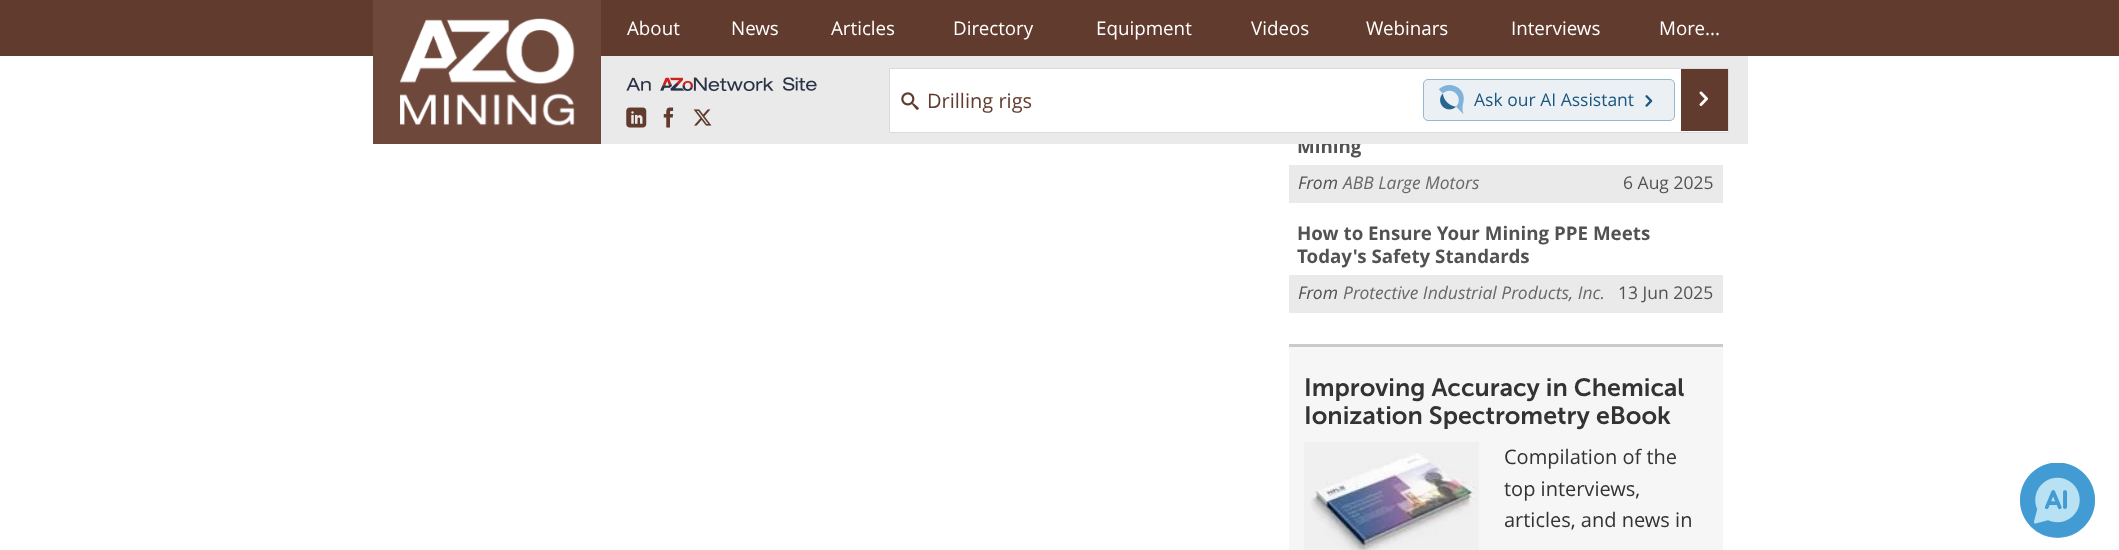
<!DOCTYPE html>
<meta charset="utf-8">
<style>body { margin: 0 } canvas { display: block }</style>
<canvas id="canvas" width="2119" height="550"></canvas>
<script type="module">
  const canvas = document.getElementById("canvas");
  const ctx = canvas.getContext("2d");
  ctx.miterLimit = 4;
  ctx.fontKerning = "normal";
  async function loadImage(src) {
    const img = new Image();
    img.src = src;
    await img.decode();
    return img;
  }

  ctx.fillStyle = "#ffffff";
  ctx.fillRect(0, 0, 2119, 550);
  ctx.fillStyle = "#623b2f";
  ctx.fillRect(0, 0, 2119, 56);
  ctx.font = "bold 18.75px Open Sans";
  ctx.fillStyle = "#525252";
  ctx.fillText("Mining", 1297, 153);
  ctx.fillStyle = "#eaeaea";
  ctx.fillRect(601, 56, 1147, 88);
  ctx.fillStyle = "#6f483c";
  ctx.fillRect(373, 0, 228, 144);
  ctx.drawImage(await loadImage("img1.png"), 400, 18, 175, 108);
  ctx.font = "18.75px Open Sans";
  ctx.fillStyle = "#ffffff";
  ctx.fillText("About", 627, 35);
  ctx.fillText("News", 731, 35);
  ctx.fillText("Articles", 831, 35);
  ctx.fillText("Directory", 953, 35);
  ctx.fillText("Equipment", 1096, 35);
  ctx.fillText("Videos", 1251, 35);
  ctx.fillText("Webinars", 1366, 35);
  ctx.fillText("Interviews", 1511, 35);
  ctx.fillText("More...", 1659, 35);
  ctx.drawImage(await loadImage("img2.png"), 626, 77, 191, 15);
  ctx.drawImage(await loadImage("img3.png"), 626, 107, 21, 21);
  ctx.drawImage(await loadImage("img4.png"), 663, 107, 11, 21);
  ctx.drawImage(await loadImage("img5.png"), 693, 109, 19, 17);
  ctx.beginPath();
  ctx.rect(889.5, 68.5, 839, 64);
  ctx.fill();
  ctx.strokeStyle = "#dbdbdb";
  ctx.stroke();
  ctx.drawImage(await loadImage("img6.png"), 901, 92, 18, 18);
  ctx.font = "20px Open Sans";
  ctx.fillStyle = "#623b2f";
  ctx.fillText("Drilling rigs", 927, 108);
  ctx.fillStyle = "#ebf0f5";
  ctx.beginPath();
  ctx.roundRect(1423.5, 79.5, 251, 41, 4.5);
  ctx.fill();
  ctx.strokeStyle = "#97b7ce";
  ctx.stroke();
  ctx.drawImage(await loadImage("img7.png"), 1439, 85, 25, 29);
  ctx.font = "17.5px Open Sans";
  ctx.fillStyle = "#1a567e";
  ctx.fillText("Ask our AI Assistant", 1474, 106);
  ctx.drawImage(await loadImage("img8.png"), 1645, 95, 8, 12);
  ctx.fillStyle = "#623b2f";
  ctx.fillRect(1681, 69, 47, 62);
  ctx.drawImage(await loadImage("img9.png"), 1699, 91, 9, 15);
  ctx.fillStyle = "#eaeaea";
  ctx.fillRect(1289, 165, 434, 38);
  ctx.font = "italic 17.5px Open Sans";
  ctx.fillStyle = "#525252";
  ctx.fillText("From", 1298, 189);
  ctx.fillStyle = "#6b686b";
  ctx.fillText("ABB Large Motors", 1343, 189);
  ctx.font = "17.5px Open Sans";
  ctx.fillStyle = "#525252";
  ctx.fillText("6 Aug 2025", 1623, 189);
  ctx.font = "bold 18.75px Open Sans";
  ctx.fillText("How to Ensure Your Mining PPE Meets", 1297, 240);
  ctx.fillText("Today's Safety Standards", 1297, 263);
  ctx.fillStyle = "#eaeaea";
  ctx.fillRect(1289, 275, 434, 38);
  ctx.font = "italic 17.5px Open Sans";
  ctx.fillStyle = "#525252";
  ctx.fillText("From", 1298, 299);
  ctx.fillStyle = "#6b686b";
  ctx.fillText("Protective Industrial Products, Inc.", 1343, 299);
  ctx.font = "17.5px Open Sans";
  ctx.fillStyle = "#525252";
  ctx.fillText("13 Jun 2025", 1618, 299);
  ctx.fillStyle = "#f6f6f6";
  ctx.fillRect(1289, 347, 434, 203);
  ctx.fillStyle = "#c9cacb";
  ctx.fillRect(1289, 344, 434, 3);
  ctx.font = "600 25px 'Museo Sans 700'";
  ctx.fillStyle = "#333333";
  ctx.fillText("Improving Accuracy in Chemical", 1304, 396);
  ctx.fillText("Ionization Spectrometry eBook", 1304, 424);
  ctx.drawImage(await loadImage("img10.png"), 1304, 442, 175, 108);
  ctx.font = "20px Open Sans";
  ctx.fillText("Compilation of the", 1504, 464);
  ctx.fillText("top interviews,", 1504, 496);
  ctx.fillText("articles, and news in", 1504, 527);
  ctx.fillStyle = "#7fb3db";
  ctx.beginPath();
  ctx.arc(2057.5, 500.5, 37.5, 0, Math.PI * 2);
  ctx.fill();
  ctx.drawImage(await loadImage("img11.png"), 2020, 463, 75, 75);
</script>
